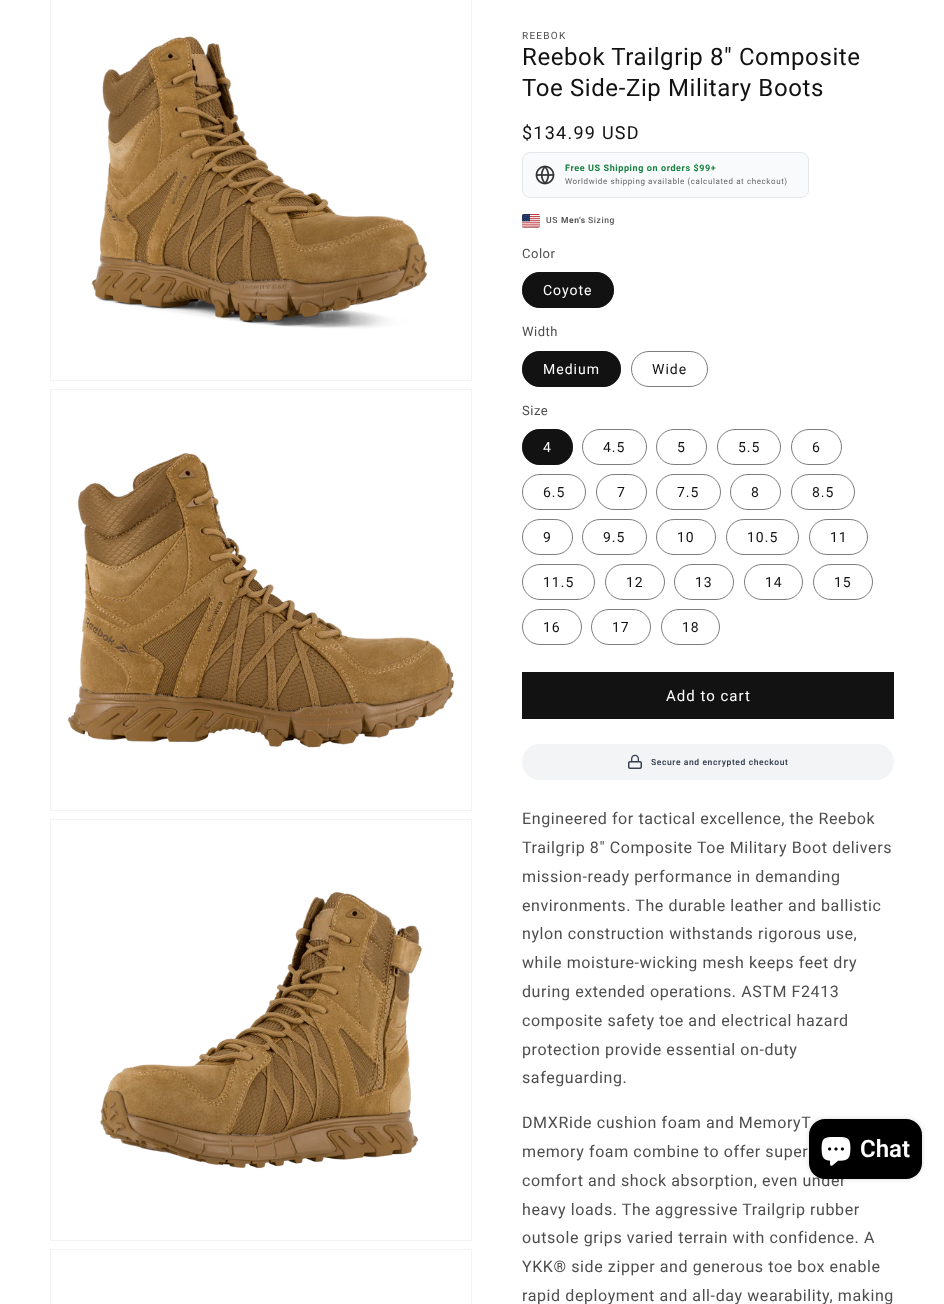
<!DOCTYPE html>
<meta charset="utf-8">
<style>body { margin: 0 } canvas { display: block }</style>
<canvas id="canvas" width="944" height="1304"></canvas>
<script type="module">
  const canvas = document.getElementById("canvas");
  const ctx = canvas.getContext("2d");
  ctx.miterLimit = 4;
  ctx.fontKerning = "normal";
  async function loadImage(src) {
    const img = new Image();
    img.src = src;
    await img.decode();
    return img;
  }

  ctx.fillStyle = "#ffffff";
  ctx.fillRect(0, 0, 944, 1304);
  ctx.strokeStyle = "#f3f3f3";
  ctx.strokeRect(50.5, -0.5, 421, 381);
  ctx.drawImage(await loadImage("img1.png"), 91, 36, 337, 293);
  ctx.strokeRect(50.5, 389.5, 421, 421);
  ctx.drawImage(await loadImage("img2.png"), 67, 453, 388, 295);
  ctx.strokeRect(50.5, 819.5, 421, 421);
  ctx.drawImage(await loadImage("img3.png"), 100, 892, 322, 277);
  ctx.strokeRect(50.5, 1249.5, 421, 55);
  ctx.letterSpacing = "1.25px";
  ctx.font = "10px Roboto";
  ctx.fillStyle = "#4d4d4d";
  ctx.fillText("REEBOK", 522, 39);
  ctx.letterSpacing = "0.6px";
  ctx.font = "24px Roboto";
  ctx.fillStyle = "#121212";
  ctx.fillText("Reebok Trailgrip 8\" Composite", 522, 65);
  ctx.fillText("Toe Side-Zip Military Boots", 522, 96);
  ctx.letterSpacing = "1.25px";
  ctx.font = "18px Roboto";
  ctx.fillText("$134.99 USD", 522, 139);
  ctx.fillStyle = "#f9fafb";
  ctx.beginPath();
  ctx.roundRect(522.5, 152.5, 286, 45, 7.5);
  ctx.fill();
  ctx.strokeStyle = "#e5e7eb";
  ctx.stroke();
  ctx.drawImage(await loadImage("img4.png"), 535, 165, 20, 20);
  ctx.letterSpacing = "0.6px";
  ctx.font = "bold 9px Roboto";
  ctx.fillStyle = "#15803d";
  ctx.fillText("Free US Shipping on orders $99+", 565, 171);
  ctx.font = "8px Roboto";
  ctx.fillStyle = "#666666";
  ctx.fillText("Worldwide shipping available (calculated at checkout)", 565, 184);
  ctx.fillStyle = "rgba(0, 0, 0, 0.3)";
  ctx.filter = "blur(0.5px)";
  ctx.beginPath();
  ctx.roundRect(522, 214, 18, 14, 2);
  ctx.fill();
  ctx.filter = "none";
  ctx.drawImage(await loadImage("img5.png"), 522, 214, 18, 14);
  ctx.font = "500 8.5px Roboto";
  ctx.fillStyle = "#555555";
  ctx.fillText("US", 546, 223);
  ctx.font = "bold 8.5px Roboto";
  ctx.fillText("Men's", 561, 223);
  ctx.font = "500 8.5px Roboto";
  ctx.fillText("Sizing", 588, 223);
  ctx.letterSpacing = "0.5px";
  ctx.font = "13px Roboto";
  ctx.fillStyle = "#4d4d4d";
  ctx.fillText("Color", 522, 258);
  ctx.fillStyle = "#121212";
  ctx.beginPath();
  ctx.roundRect(522, 272, 92, 36, 18);
  ctx.fill();
  ctx.beginPath();
  ctx.roundRect(522.5, 272.5, 91, 35, 17.5);
  ctx.strokeStyle = "rgba(18, 18, 18, 0.55)";
  ctx.stroke();
  ctx.letterSpacing = "1px";
  ctx.font = "14px Roboto";
  ctx.fillStyle = "#ffffff";
  ctx.fillText("Coyote", 543, 295);
  ctx.letterSpacing = "0.5px";
  ctx.font = "13px Roboto";
  ctx.fillStyle = "#4d4d4d";
  ctx.fillText("Width", 522, 336);
  ctx.fillStyle = "#121212";
  ctx.beginPath();
  ctx.roundRect(522, 351, 99, 36, 18);
  ctx.fill();
  ctx.beginPath();
  ctx.roundRect(522.5, 351.5, 98, 35, 17.5);
  ctx.stroke();
  ctx.letterSpacing = "1px";
  ctx.font = "14px Roboto";
  ctx.fillStyle = "#ffffff";
  ctx.fillText("Medium", 543, 374);
  ctx.beginPath();
  ctx.roundRect(631.5, 351.5, 76, 35, 17.5);
  ctx.strokeStyle = "#7d7d7d";
  ctx.stroke();
  ctx.fillStyle = "#121212";
  ctx.fillText("Wide", 652, 374);
  ctx.letterSpacing = "0.5px";
  ctx.font = "13px Roboto";
  ctx.fillStyle = "#4d4d4d";
  ctx.fillText("Size", 522, 415);
  ctx.fillStyle = "#121212";
  ctx.beginPath();
  ctx.roundRect(522, 429, 51, 36, 18);
  ctx.fill();
  ctx.beginPath();
  ctx.roundRect(522.5, 429.5, 50, 35, 17.5);
  ctx.strokeStyle = "rgba(18, 18, 18, 0.55)";
  ctx.stroke();
  ctx.letterSpacing = "1px";
  ctx.font = "14px Roboto";
  ctx.fillStyle = "#ffffff";
  ctx.fillText("4", 543, 452);
  ctx.beginPath();
  ctx.roundRect(582.5, 429.5, 64, 35, 17.5);
  ctx.strokeStyle = "#7d7d7d";
  ctx.stroke();
  ctx.fillStyle = "#121212";
  ctx.fillText("4.5", 603, 452);
  ctx.beginPath();
  ctx.roundRect(656.5, 429.5, 50, 35, 17.5);
  ctx.stroke();
  ctx.fillText("5", 677, 452);
  ctx.beginPath();
  ctx.roundRect(717.5, 429.5, 63, 35, 17.5);
  ctx.stroke();
  ctx.fillText("5.5", 738, 452);
  ctx.beginPath();
  ctx.roundRect(791.5, 429.5, 50, 35, 17.5);
  ctx.stroke();
  ctx.fillText("6", 812, 452);
  ctx.beginPath();
  ctx.roundRect(522.5, 474.5, 63, 35, 17.5);
  ctx.stroke();
  ctx.fillText("6.5", 543, 497);
  ctx.beginPath();
  ctx.roundRect(596.5, 474.5, 50, 35, 17.5);
  ctx.stroke();
  ctx.fillText("7", 617, 497);
  ctx.beginPath();
  ctx.roundRect(656.5, 474.5, 64, 35, 17.5);
  ctx.stroke();
  ctx.fillText("7.5", 677, 497);
  ctx.beginPath();
  ctx.roundRect(730.5, 474.5, 50, 35, 17.5);
  ctx.stroke();
  ctx.fillText("8", 751, 497);
  ctx.beginPath();
  ctx.roundRect(791.5, 474.5, 63, 35, 17.5);
  ctx.stroke();
  ctx.fillText("8.5", 812, 497);
  ctx.beginPath();
  ctx.roundRect(522.5, 519.5, 50, 35, 17.5);
  ctx.stroke();
  ctx.fillText("9", 543, 542);
  ctx.beginPath();
  ctx.roundRect(582.5, 519.5, 64, 35, 17.5);
  ctx.stroke();
  ctx.fillText("9.5", 603, 542);
  ctx.beginPath();
  ctx.roundRect(656.5, 519.5, 59, 35, 17.5);
  ctx.stroke();
  ctx.fillText("10", 677, 542);
  ctx.beginPath();
  ctx.roundRect(726.5, 519.5, 72, 35, 17.5);
  ctx.stroke();
  ctx.fillText("10.5", 747, 542);
  ctx.beginPath();
  ctx.roundRect(809.5, 519.5, 58, 35, 17.5);
  ctx.stroke();
  ctx.fillText("11", 830, 542);
  ctx.beginPath();
  ctx.roundRect(522.5, 564.5, 72, 35, 17.5);
  ctx.stroke();
  ctx.fillText("11.5", 543, 587);
  ctx.beginPath();
  ctx.roundRect(605.5, 564.5, 59, 35, 17.5);
  ctx.stroke();
  ctx.fillText("12", 626, 587);
  ctx.beginPath();
  ctx.roundRect(674.5, 564.5, 59, 35, 17.5);
  ctx.stroke();
  ctx.fillText("13", 695, 587);
  ctx.beginPath();
  ctx.roundRect(744.5, 564.5, 58, 35, 17.5);
  ctx.stroke();
  ctx.fillText("14", 765, 587);
  ctx.beginPath();
  ctx.roundRect(813.5, 564.5, 59, 35, 17.5);
  ctx.stroke();
  ctx.fillText("15", 834, 587);
  ctx.beginPath();
  ctx.roundRect(522.5, 609.5, 59, 35, 17.5);
  ctx.stroke();
  ctx.fillText("16", 543, 632);
  ctx.beginPath();
  ctx.roundRect(591.5, 609.5, 59, 35, 17.5);
  ctx.stroke();
  ctx.fillText("17", 612, 632);
  ctx.beginPath();
  ctx.roundRect(661.5, 609.5, 58, 35, 17.5);
  ctx.stroke();
  ctx.fillText("18", 682, 632);
  ctx.fillRect(522, 672, 372, 47);
  ctx.font = "15px Roboto";
  ctx.fillStyle = "#ffffff";
  ctx.fillText("Add to cart", 666, 701);
  ctx.fillStyle = "#f3f4f6";
  ctx.beginPath();
  ctx.roundRect(522, 744, 372, 36, 18);
  ctx.fill();
  ctx.drawImage(await loadImage("img6.png"), 628, 754, 14, 15);
  ctx.letterSpacing = "0.6px";
  ctx.font = "600 8.5px Roboto";
  ctx.fillStyle = "#374151";
  ctx.fillText("Secure and encrypted checkout", 651, 765);
  ctx.font = "16px Roboto";
  ctx.fillStyle = "#4d4d4d";
  ctx.fillText("Engineered for tactical excellence, the Reebok", 522, 824);
  ctx.fillText("Trailgrip 8\" Composite Toe Military Boot delivers", 522, 853);
  ctx.fillText("mission-ready performance in demanding", 522, 882);
  ctx.fillText("environments. The durable leather and ballistic", 522, 911);
  ctx.fillText("nylon construction withstands rigorous use,", 522, 939);
  ctx.fillText("while moisture-wicking mesh keeps feet dry", 522, 968);
  ctx.fillText("during extended operations. ASTM F2413", 522, 997);
  ctx.fillText("composite safety toe and electrical hazard", 522, 1026);
  ctx.fillText("protection provide essential on-duty", 522, 1055);
  ctx.fillText("safeguarding.", 522, 1083);
  ctx.fillText("DMXRide cushion foam and MemoryT", 522, 1128);
  ctx.fillText("memory foam combine to offer super", 522, 1157);
  ctx.fillText("comfort and shock absorption, even under", 522, 1186);
  ctx.fillText("heavy loads. The aggressive Trailgrip rubber", 522, 1215);
  ctx.fillText("outsole grips varied terrain with confidence. A", 522, 1243);
  ctx.fillText("YKK® side zipper and generous toe box enable", 522, 1272);
  ctx.fillText("rapid deployment and all-day wearability, making", 522, 1301);
  ctx.fillStyle = "rgba(0, 0, 0, 0.15)";
  ctx.filter = "blur(2.5px)";
  ctx.beginPath();
  ctx.roundRect(809, 1119, 113, 60, 16);
  ctx.fill();
  ctx.filter = "none";
  ctx.fillStyle = "#000000";
  ctx.beginPath();
  ctx.roundRect(809, 1119, 113, 60, 16);
  ctx.fill();
  ctx.drawImage(await loadImage("img7.png"), 821, 1137, 30, 29);
  ctx.letterSpacing = "0px";
  ctx.font = "600 24px Roboto";
  ctx.fillStyle = "#ffffff";
  ctx.fillText("Chat", 860, 1157);
</script>
